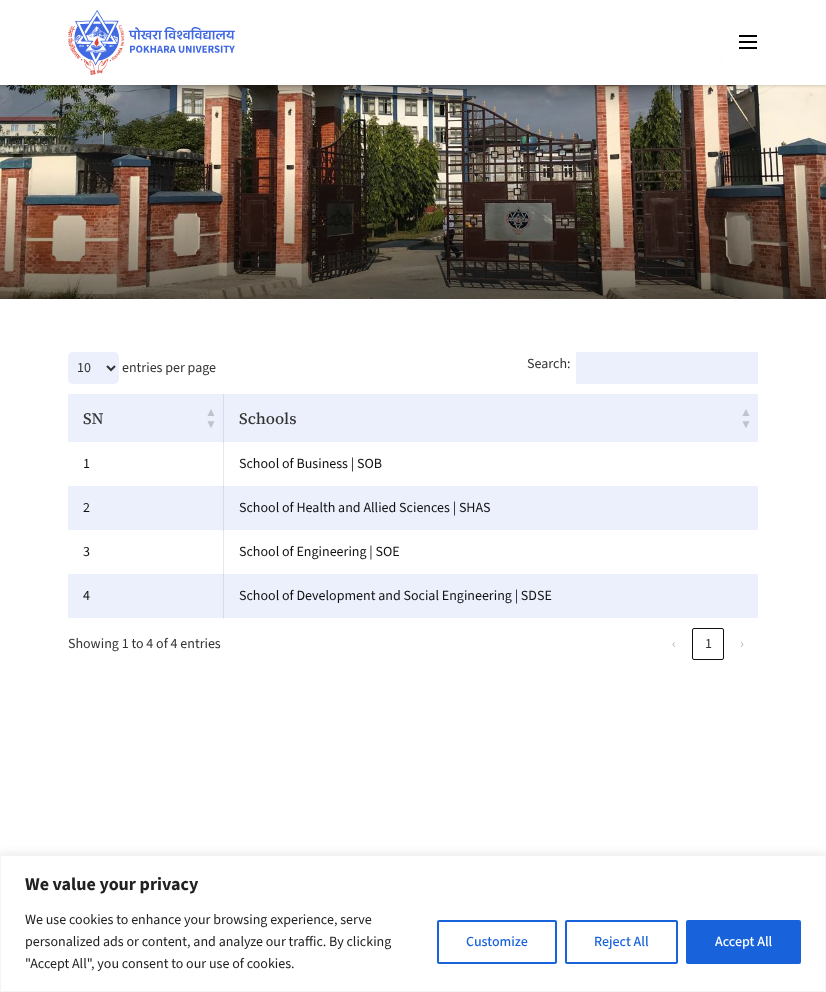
<!DOCTYPE html>
<meta charset="utf-8">
<style>body { margin: 0 } canvas { display: block }</style>
<canvas id="canvas" width="826" height="992"></canvas>
<script type="module">
  const canvas = document.getElementById("canvas");
  const ctx = canvas.getContext("2d");
  ctx.miterLimit = 4;
  ctx.fontKerning = "normal";
  async function loadImage(src) {
    const img = new Image();
    img.src = src;
    await img.decode();
    return img;
  }

  ctx.fillStyle = "#ffffff";
  ctx.fillRect(0, 0, 826, 992);
  ctx.fillStyle = "#ecf0fc";
  ctx.fillRect(68, 394, 155, 48);
  ctx.fillStyle = "#d6dcef";
  ctx.fillRect(223, 394, 1, 48);
  ctx.fillStyle = "#e7e9f0";
  ctx.fillRect(223, 442, 1, 45);
  ctx.fillStyle = "#d2d6e2";
  ctx.fillRect(223, 442, 1, 1);
  ctx.fillStyle = "#e7e9f0";
  ctx.fillRect(223, 530, 1, 45);
  ctx.fillStyle = "#d2d6e2";
  ctx.fillRect(223, 530, 1, 1);
  ctx.fillStyle = "#e7e9f0";
  ctx.fillRect(223, 618, 1, 1);
  ctx.drawImage(await loadImage("img2.png"), 0, 85, 826, 214);
  ctx.fillStyle = "rgba(0, 0, 0, 0.16)";
  ctx.filter = "blur(1.5px)";
  ctx.beginPath();
  ctx.rect(0, 1, 826, 85);
  ctx.fill();
  ctx.filter = "none";
  ctx.fillStyle = "#ffffff";
  ctx.fillRect(0, 0, 826, 85);
  ctx.fillStyle = "rgba(0, 0, 0, 0.8)";
  ctx.filter = "blur(15px)";
  ctx.beginPath();
  ctx.roundRect(137, 41, 552, 42, 21);
  ctx.fill();
  ctx.filter = "none";
  ctx.fillStyle = "#ffffff";
  ctx.fillRect(107, 7, 612, 78);
  ctx.drawImage(await loadImage("img1.png"), 68, 10, 167, 65);
  ctx.fillStyle = "#000000";
  ctx.fillRect(739, 35, 18, 2);
  ctx.fillRect(739, 41, 18, 2);
  ctx.fillRect(739, 47, 18, 2);
  ctx.fillStyle = "#ecf0fc";
  ctx.beginPath();
  ctx.roundRect(68, 352, 51, 32, 5);
  ctx.fill();
  ctx.beginPath();
  ctx.moveTo(107, 366);
  ctx.lineTo(111, 370);
  ctx.lineTo(115, 366);
  ctx.strokeStyle = "#333333";
  ctx.lineWidth = 2;
  ctx.stroke();
  ctx.font = "14px 'Source Sans 3'";
  ctx.fillStyle = "#333333";
  ctx.fillText("10", 77, 372);
  ctx.fillText("entries per page", 122, 372);
  ctx.fillText("Search:", 527, 368);
  ctx.fillStyle = "#ecf0fc";
  ctx.fillRect(576, 352, 182, 32);
  ctx.font = "500 16px 'Source Serif 4'";
  ctx.fillStyle = "#333333";
  ctx.fillText("SN", 83, 424);
  ctx.font = "12px Liberation Sans";
  ctx.fillStyle = "#c0c3cd";
  ctx.fillText("▲", 205, 416);
  ctx.fillText("▼", 205, 428);
  ctx.fillStyle = "#ecf0fc";
  ctx.fillRect(224, 394, 534, 48);
  ctx.font = "500 16px 'Source Serif 4'";
  ctx.fillStyle = "#333333";
  ctx.fillText("Schools", 239, 424);
  ctx.font = "12px Liberation Sans";
  ctx.fillStyle = "#c0c3cd";
  ctx.fillText("▲", 740, 416);
  ctx.fillText("▼", 740, 428);
  ctx.font = "14px 'Source Sans 3'";
  ctx.fillStyle = "#111111";
  ctx.fillText("1", 83, 468);
  ctx.fillText("School of Business | SOB", 239, 468);
  ctx.fillStyle = "#ecf0fc";
  ctx.fillRect(68, 486, 155, 44);
  ctx.fillStyle = "#d6dced";
  ctx.fillRect(223, 486, 1, 44);
  ctx.fillStyle = "#c3cadf";
  ctx.fillRect(223, 486, 1, 1);
  ctx.fillStyle = "#111111";
  ctx.fillText("2", 83, 512);
  ctx.fillStyle = "#ecf0fc";
  ctx.fillRect(224, 486, 534, 44);
  ctx.fillStyle = "#111111";
  ctx.fillText("School of Health and Allied Sciences | SHAS", 239, 512);
  ctx.fillText("3", 83, 556);
  ctx.fillText("School of Engineering | SOE", 239, 556);
  ctx.fillStyle = "#ecf0fc";
  ctx.fillRect(68, 574, 155, 44);
  ctx.fillStyle = "#d6dced";
  ctx.fillRect(223, 574, 1, 44);
  ctx.fillStyle = "#c3cadf";
  ctx.fillRect(223, 574, 1, 1);
  ctx.fillStyle = "#111111";
  ctx.fillText("4", 83, 600);
  ctx.fillStyle = "#ecf0fc";
  ctx.fillRect(224, 574, 534, 44);
  ctx.fillStyle = "#111111";
  ctx.fillText("School of Development and Social Engineering | SDSE", 239, 600);
  ctx.fillStyle = "#333333";
  ctx.fillText("Showing 1 to 4 of 4 entries", 68, 648);
  ctx.fillStyle = "#b3b3b3";
  ctx.fillText("‹", 672, 648);
  ctx.beginPath();
  ctx.roundRect(692.5, 628.5, 31, 31, 1.5);
  ctx.strokeStyle = "#111111";
  ctx.lineWidth = 1;
  ctx.stroke();
  ctx.fillStyle = "#333333";
  ctx.fillText("1", 705, 648);
  ctx.fillStyle = "#b3b3b3";
  ctx.fillText("›", 740, 648);
  ctx.fillStyle = "rgba(172, 171, 171, 0.3)";
  ctx.filter = "blur(5px)";
  ctx.beginPath();
  ctx.rect(0, 854, 826, 137);
  ctx.fill();
  ctx.filter = "none";
  ctx.fillStyle = "#ffffff";
  ctx.beginPath();
  ctx.rect(0.5, 855.5, 825, 136);
  ctx.fill();
  ctx.strokeStyle = "#f4f4f4";
  ctx.stroke();
  ctx.font = "bold 18px 'Source Sans 3'";
  ctx.fillStyle = "#212121";
  ctx.fillText("We value your privacy", 25, 890);
  ctx.font = "14px 'Source Sans 3'";
  ctx.fillText("We use cookies to enhance your browsing experience, serve", 25, 924);
  ctx.fillText("personalized ads or content, and analyze our traffic. By clicking", 25, 946);
  ctx.fillText("\"Accept All\", you consent to our use of cookies.", 25, 968);
  ctx.beginPath();
  ctx.roundRect(438, 921, 118, 42, 1);
  ctx.strokeStyle = "#1863dc";
  ctx.lineWidth = 2;
  ctx.stroke();
  ctx.font = "500 14px 'Source Sans 3'";
  ctx.fillStyle = "#1863dc";
  ctx.fillText("Customize", 466, 946);
  ctx.beginPath();
  ctx.roundRect(566, 921, 111, 42, 1);
  ctx.stroke();
  ctx.fillText("Reject All", 594, 946);
  ctx.beginPath();
  ctx.roundRect(687, 921, 113, 42, 1);
  ctx.fill();
  ctx.stroke();
  ctx.fillStyle = "#ffffff";
  ctx.fillText("Accept All", 715, 946);
</script>
